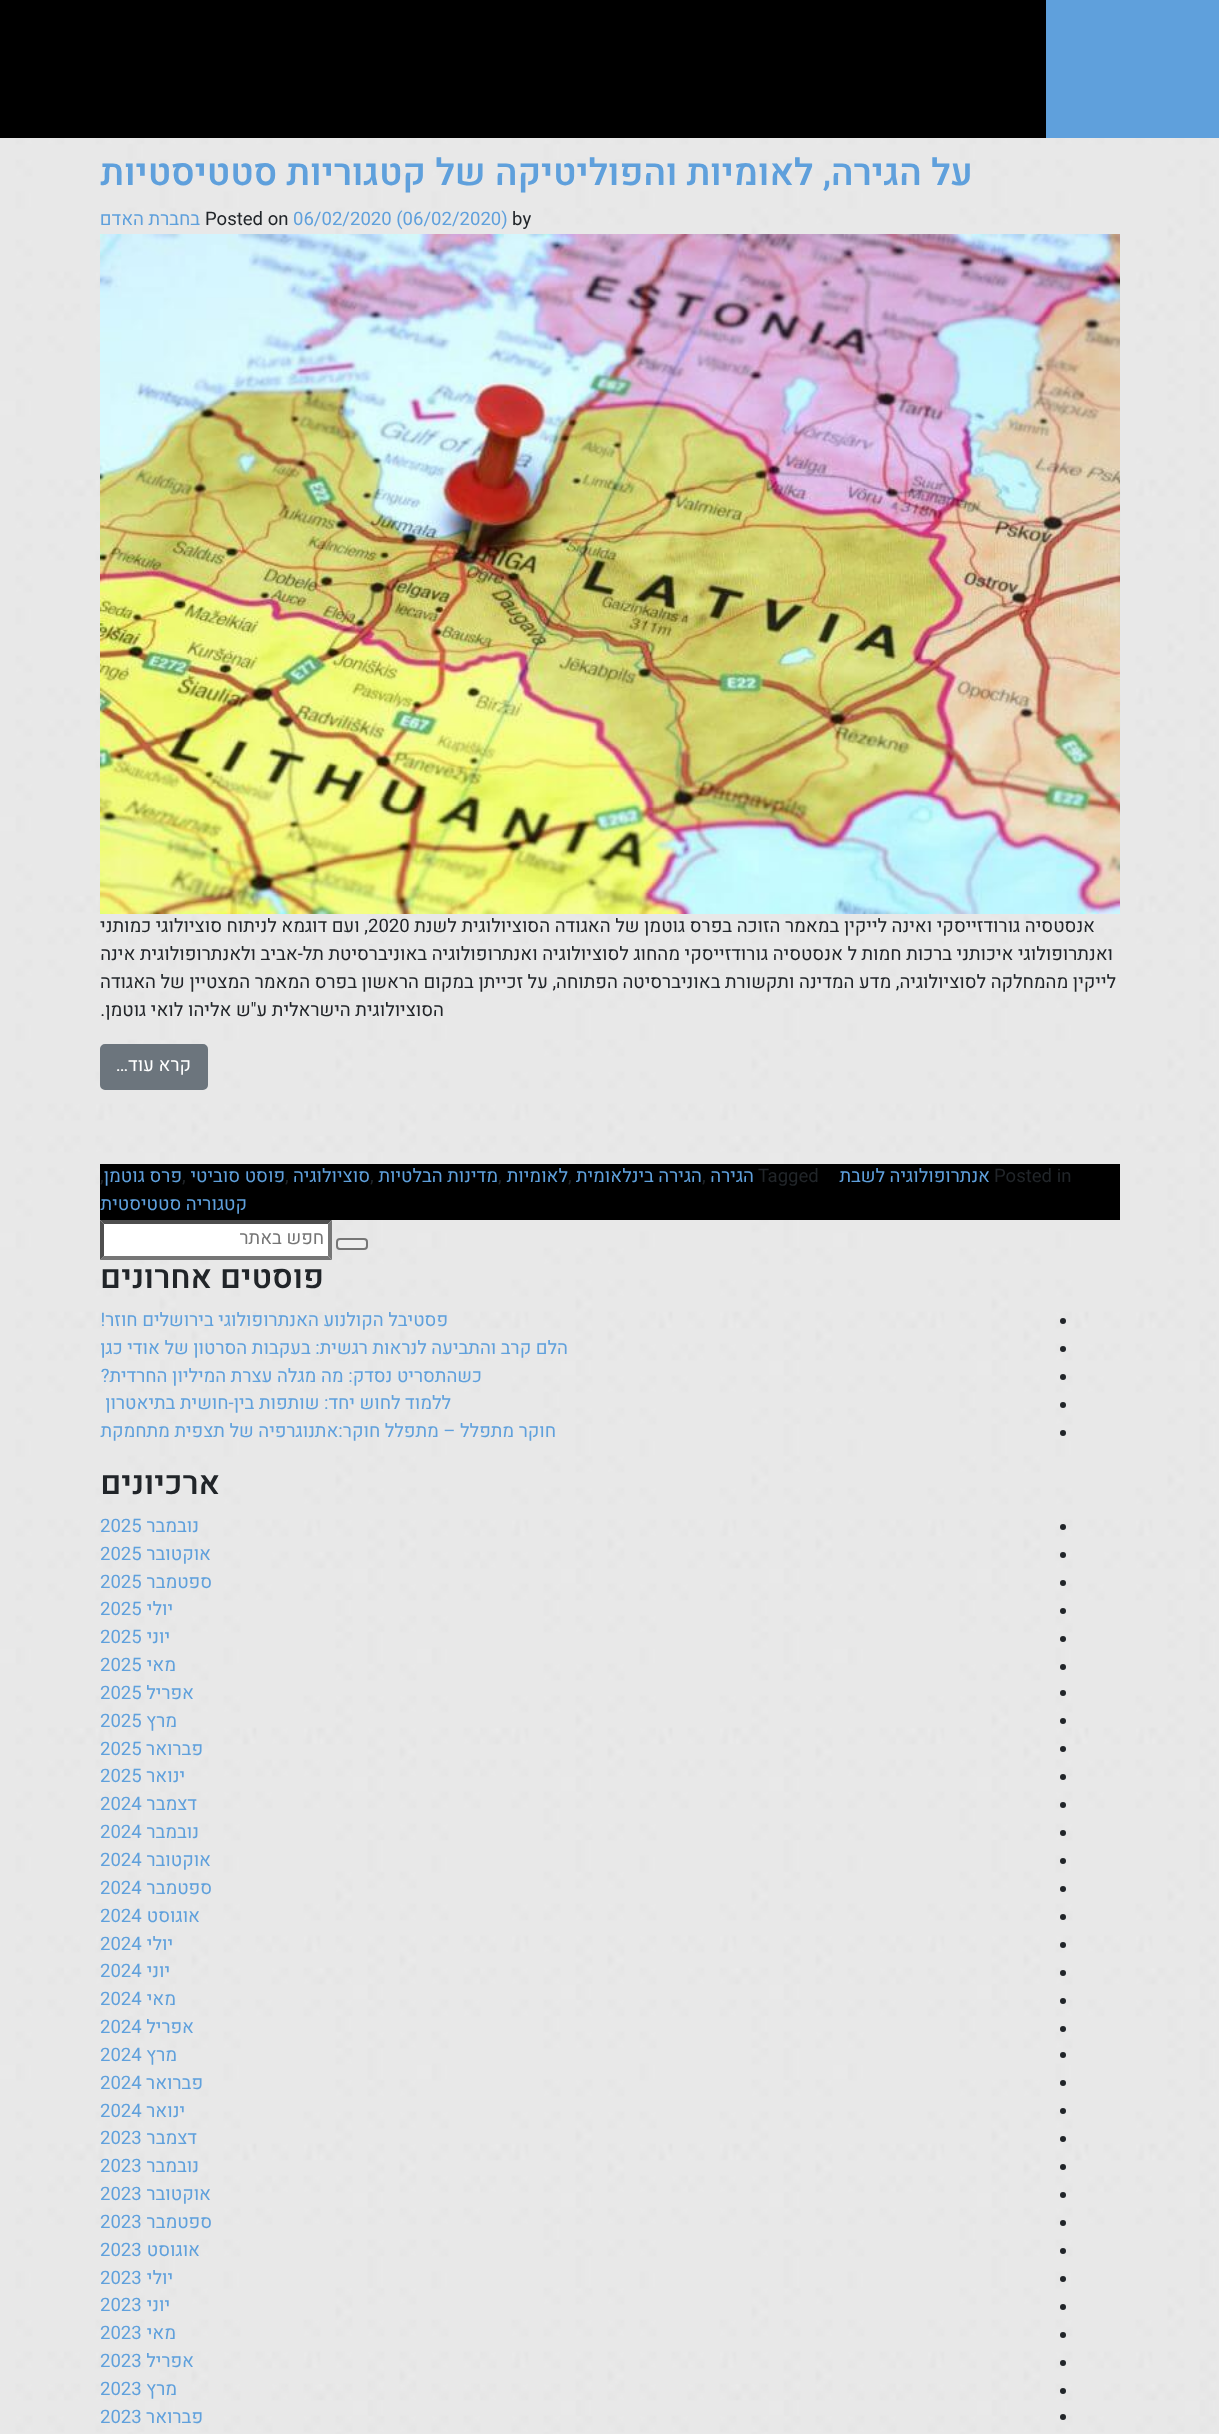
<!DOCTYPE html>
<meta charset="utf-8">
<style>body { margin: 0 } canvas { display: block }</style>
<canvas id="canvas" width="1219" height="2434"></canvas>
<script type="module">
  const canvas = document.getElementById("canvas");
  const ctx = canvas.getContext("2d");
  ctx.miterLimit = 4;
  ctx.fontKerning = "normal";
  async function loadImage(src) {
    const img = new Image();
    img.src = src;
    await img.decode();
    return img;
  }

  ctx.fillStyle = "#ffffff";
  ctx.fillRect(0, 0, 1219, 2434);
  ctx.drawImage(await loadImage("img1.png"), 0, 138, 1219, 2296);
  ctx.fillStyle = "#000000";
  ctx.fillRect(0, 0, 1046, 138);
  ctx.fillStyle = "#5fa0dc";
  ctx.fillRect(1046, 0, 173, 138);
  ctx.direction = "rtl";
  ctx.font = "500 37.1px Heebo";
  ctx.fillText("על הגירה, לאומיות והפוליטיקה של קטגוריות סטטיסטיות", 973, 185);
  ctx.direction = "ltr";
  ctx.font = "18.55px Heebo";
  ctx.fillStyle = "#212529";
  ctx.fillText("by", 512, 225);
  ctx.fillStyle = "#5fa0dc";
  ctx.fillText("06/02/2020 (06/02/2020)", 293, 225);
  ctx.fillStyle = "#212529";
  ctx.fillText("Posted on", 205, 225);
  ctx.direction = "rtl";
  ctx.fillStyle = "#5fa0dc";
  ctx.fillText("בחברת האדם", 200, 225);
  ctx.drawImage(await loadImage("img2.png"), 100, 234, 1020, 680);
  ctx.fillStyle = "#212529";
  ctx.fillText("אנסטסיה גורודזייסקי ואינה לייקין במאמר הזוכה בפרס גוטמן של האגודה הסוציולוגית לשנת", 1095, 932);
  ctx.direction = "ltr";
  ctx.fillText("2020", 368, 932);
  ctx.direction = "rtl";
  ctx.fillText(", ועם דוגמא לניתוח סוציולוגי כמותני", 368, 932);
  ctx.fillText("ואנתרופולוגי איכותני ברכות חמות ל אנסטסיה גורודזייסקי מהחוג לסוציולוגיה ואנתרופולוגיה באוניברסיטת תל-אביב ולאנתרופולוגית אינה", 1113, 960);
  ctx.fillText("לייקין מהמחלקה לסוציולוגיה, מדע המדינה ותקשורת באוניברסיטה הפתוחה, על זכייתן במקום הראשון בפרס המאמר המצטיין של האגודה", 1116, 988);
  ctx.fillText("הסוציולוגית הישראלית ע\"ש אליהו לואי גוטמן.", 444, 1016);
  ctx.fillStyle = "#6c757d";
  ctx.beginPath();
  ctx.roundRect(101, 1045, 106, 44, 4);
  ctx.fill();
  ctx.strokeStyle = "#6c757d";
  ctx.lineWidth = 2;
  ctx.stroke();
  ctx.fillStyle = "#ffffff";
  ctx.fillText("קרא עוד…", 191, 1071);
  ctx.fillStyle = "#000000";
  ctx.fillRect(100, 1164, 1020, 56);
  ctx.direction = "ltr";
  ctx.fillStyle = "#212529";
  ctx.fillText("Posted in", 994, 1182);
  ctx.direction = "rtl";
  ctx.fillStyle = "#5fa0dc";
  ctx.fillText("אנתרופולוגיה לשבת", 990, 1182);
  ctx.direction = "ltr";
  ctx.fillStyle = "#212529";
  ctx.fillText("Tagged", 758, 1182);
  ctx.direction = "rtl";
  ctx.fillStyle = "#5fa0dc";
  ctx.fillText("הגירה", 754, 1182);
  ctx.direction = "ltr";
  ctx.fillStyle = "#212529";
  ctx.fillText(",", 702, 1182);
  ctx.direction = "rtl";
  ctx.fillStyle = "#5fa0dc";
  ctx.fillText("הגירה בינלאומית", 702, 1182);
  ctx.direction = "ltr";
  ctx.fillStyle = "#212529";
  ctx.fillText(",", 568, 1182);
  ctx.direction = "rtl";
  ctx.fillStyle = "#5fa0dc";
  ctx.fillText("לאומיות", 568, 1182);
  ctx.direction = "ltr";
  ctx.fillStyle = "#212529";
  ctx.fillText(",", 498, 1182);
  ctx.direction = "rtl";
  ctx.fillStyle = "#5fa0dc";
  ctx.fillText("מדינות הבלטיות", 498, 1182);
  ctx.direction = "ltr";
  ctx.fillStyle = "#212529";
  ctx.fillText(",", 370, 1182);
  ctx.direction = "rtl";
  ctx.fillStyle = "#5fa0dc";
  ctx.fillText("סוציולוגיה", 370, 1182);
  ctx.direction = "ltr";
  ctx.fillStyle = "#212529";
  ctx.fillText(",", 285, 1182);
  ctx.direction = "rtl";
  ctx.fillStyle = "#5fa0dc";
  ctx.fillText("פוסט סוביטי", 285, 1182);
  ctx.direction = "ltr";
  ctx.fillStyle = "#212529";
  ctx.fillText(",", 182, 1182);
  ctx.direction = "rtl";
  ctx.fillStyle = "#5fa0dc";
  ctx.fillText("פרס גוטמן", 182, 1182);
  ctx.direction = "ltr";
  ctx.fillStyle = "#212529";
  ctx.fillText(",", 100, 1182);
  ctx.direction = "rtl";
  ctx.fillStyle = "#5fa0dc";
  ctx.fillText("קטגוריה סטטיסטית", 247, 1210);
  ctx.fillStyle = "#efefef";
  ctx.beginPath();
  ctx.roundRect(337, 1239, 30, 10, 3);
  ctx.fill();
  ctx.strokeStyle = "#767676";
  ctx.stroke();
  ctx.fillStyle = "#ffffff";
  ctx.fillRect(100, 1220, 232, 40);
  ctx.fillStyle = "#4f4f4f";
  ctx.beginPath();
  ctx.moveTo(100, 1220);
  ctx.lineTo(332, 1220);
  ctx.lineTo(328, 1224);
  ctx.lineTo(104, 1224);
  ctx.closePath();
  ctx.fill();
  ctx.fillStyle = "#767676";
  ctx.beginPath();
  ctx.moveTo(332, 1220);
  ctx.lineTo(332, 1260);
  ctx.lineTo(328, 1256);
  ctx.lineTo(328, 1224);
  ctx.closePath();
  ctx.fill();
  ctx.beginPath();
  ctx.moveTo(332, 1260);
  ctx.lineTo(100, 1260);
  ctx.lineTo(104, 1256);
  ctx.lineTo(328, 1256);
  ctx.closePath();
  ctx.fill();
  ctx.fillStyle = "#4f4f4f";
  ctx.beginPath();
  ctx.moveTo(100, 1260);
  ctx.lineTo(100, 1220);
  ctx.lineTo(104, 1224);
  ctx.lineTo(104, 1256);
  ctx.closePath();
  ctx.fill();
  ctx.fillStyle = "#757575";
  ctx.fillText("חפש באתר", 324, 1244);
  ctx.font = "500 32.5px Heebo";
  ctx.fillStyle = "#212529";
  ctx.fillText("פוסטים אחרונים", 324, 1288);
  ctx.beginPath();
  ctx.arc(1063, 1321, 3, 0, Math.PI * 2);
  ctx.fill();
  ctx.font = "18.55px Heebo";
  ctx.fillStyle = "#5fa0dc";
  ctx.fillText("פסטיבל הקולנוע האנתרופולוגי בירושלים חוזר!", 448, 1326);
  ctx.fillStyle = "#212529";
  ctx.beginPath();
  ctx.arc(1063, 1349, 3, 0, Math.PI * 2);
  ctx.fill();
  ctx.fillStyle = "#5fa0dc";
  ctx.fillText("הלם קרב והתביעה לנראוּת רגשית: בעקבות הסרטון של אודי כגן", 568, 1354);
  ctx.fillStyle = "#212529";
  ctx.beginPath();
  ctx.arc(1063, 1377, 3, 0, Math.PI * 2);
  ctx.fill();
  ctx.fillStyle = "#5fa0dc";
  ctx.fillText("כשהתסריט נסדק: מה מגלה עצרת המיליון החרדית?", 482, 1382);
  ctx.fillStyle = "#212529";
  ctx.beginPath();
  ctx.arc(1063, 1405, 3, 0, Math.PI * 2);
  ctx.fill();
  ctx.fillStyle = "#5fa0dc";
  ctx.fillText("ללמוד לחוש יחד: שותפות בין-חושית בתיאטרון", 451, 1409);
  ctx.fillStyle = "#212529";
  ctx.beginPath();
  ctx.arc(1063, 1433, 3, 0, Math.PI * 2);
  ctx.fill();
  ctx.fillStyle = "#5fa0dc";
  ctx.fillText("חוקר מתפלל – מתפלל חוקר:אתנוגרפיה של תצפית מתחמקת", 556, 1437);
  ctx.font = "500 32.5px Heebo";
  ctx.fillStyle = "#212529";
  ctx.fillText("ארכיונים", 220, 1494);
  ctx.beginPath();
  ctx.arc(1063, 1527, 3, 0, Math.PI * 2);
  ctx.fill();
  ctx.font = "18.55px Heebo";
  ctx.fillStyle = "#5fa0dc";
  ctx.fillText("נובמבר", 199, 1532);
  ctx.direction = "ltr";
  ctx.fillText("2025", 100, 1532);
  ctx.fillStyle = "#212529";
  ctx.beginPath();
  ctx.arc(1063, 1555, 3, 0, Math.PI * 2);
  ctx.fill();
  ctx.direction = "rtl";
  ctx.fillStyle = "#5fa0dc";
  ctx.fillText("אוקטובר", 211, 1560);
  ctx.direction = "ltr";
  ctx.fillText("2025", 100, 1560);
  ctx.fillStyle = "#212529";
  ctx.beginPath();
  ctx.arc(1063, 1583, 3, 0, Math.PI * 2);
  ctx.fill();
  ctx.direction = "rtl";
  ctx.fillStyle = "#5fa0dc";
  ctx.fillText("ספטמבר", 212, 1588);
  ctx.direction = "ltr";
  ctx.fillText("2025", 100, 1588);
  ctx.fillStyle = "#212529";
  ctx.beginPath();
  ctx.arc(1063, 1611, 3, 0, Math.PI * 2);
  ctx.fill();
  ctx.direction = "rtl";
  ctx.fillStyle = "#5fa0dc";
  ctx.fillText("יולי", 173, 1615);
  ctx.direction = "ltr";
  ctx.fillText("2025", 100, 1615);
  ctx.fillStyle = "#212529";
  ctx.beginPath();
  ctx.arc(1063, 1639, 3, 0, Math.PI * 2);
  ctx.fill();
  ctx.direction = "rtl";
  ctx.fillStyle = "#5fa0dc";
  ctx.fillText("יוני", 170, 1643);
  ctx.direction = "ltr";
  ctx.fillText("2025", 100, 1643);
  ctx.fillStyle = "#212529";
  ctx.beginPath();
  ctx.arc(1063, 1667, 3, 0, Math.PI * 2);
  ctx.fill();
  ctx.direction = "rtl";
  ctx.fillStyle = "#5fa0dc";
  ctx.fillText("מאי", 176, 1671);
  ctx.direction = "ltr";
  ctx.fillText("2025", 100, 1671);
  ctx.fillStyle = "#212529";
  ctx.beginPath();
  ctx.arc(1063, 1693, 3, 0, Math.PI * 2);
  ctx.fill();
  ctx.direction = "rtl";
  ctx.fillStyle = "#5fa0dc";
  ctx.fillText("אפריל", 194, 1699);
  ctx.direction = "ltr";
  ctx.fillText("2025", 100, 1699);
  ctx.fillStyle = "#212529";
  ctx.beginPath();
  ctx.arc(1063, 1721, 3, 0, Math.PI * 2);
  ctx.fill();
  ctx.direction = "rtl";
  ctx.fillStyle = "#5fa0dc";
  ctx.fillText("מרץ", 177, 1727);
  ctx.direction = "ltr";
  ctx.fillText("2025", 100, 1727);
  ctx.fillStyle = "#212529";
  ctx.beginPath();
  ctx.arc(1063, 1749, 3, 0, Math.PI * 2);
  ctx.fill();
  ctx.direction = "rtl";
  ctx.fillStyle = "#5fa0dc";
  ctx.fillText("פברואר", 203, 1755);
  ctx.direction = "ltr";
  ctx.fillText("2025", 100, 1755);
  ctx.fillStyle = "#212529";
  ctx.beginPath();
  ctx.arc(1063, 1777, 3, 0, Math.PI * 2);
  ctx.fill();
  ctx.direction = "rtl";
  ctx.fillStyle = "#5fa0dc";
  ctx.fillText("ינואר", 185, 1782);
  ctx.direction = "ltr";
  ctx.fillText("2025", 100, 1782);
  ctx.fillStyle = "#212529";
  ctx.beginPath();
  ctx.arc(1063, 1805, 3, 0, Math.PI * 2);
  ctx.fill();
  ctx.direction = "rtl";
  ctx.fillStyle = "#5fa0dc";
  ctx.fillText("דצמבר", 197, 1810);
  ctx.direction = "ltr";
  ctx.fillText("2024", 100, 1810);
  ctx.fillStyle = "#212529";
  ctx.beginPath();
  ctx.arc(1063, 1833, 3, 0, Math.PI * 2);
  ctx.fill();
  ctx.direction = "rtl";
  ctx.fillStyle = "#5fa0dc";
  ctx.fillText("נובמבר", 199, 1838);
  ctx.direction = "ltr";
  ctx.fillText("2024", 100, 1838);
  ctx.fillStyle = "#212529";
  ctx.beginPath();
  ctx.arc(1063, 1861, 3, 0, Math.PI * 2);
  ctx.fill();
  ctx.direction = "rtl";
  ctx.fillStyle = "#5fa0dc";
  ctx.fillText("אוקטובר", 211, 1866);
  ctx.direction = "ltr";
  ctx.fillText("2024", 100, 1866);
  ctx.fillStyle = "#212529";
  ctx.beginPath();
  ctx.arc(1063, 1889, 3, 0, Math.PI * 2);
  ctx.fill();
  ctx.direction = "rtl";
  ctx.fillStyle = "#5fa0dc";
  ctx.fillText("ספטמבר", 212, 1894);
  ctx.direction = "ltr";
  ctx.fillText("2024", 100, 1894);
  ctx.fillStyle = "#212529";
  ctx.beginPath();
  ctx.arc(1063, 1917, 3, 0, Math.PI * 2);
  ctx.fill();
  ctx.direction = "rtl";
  ctx.fillStyle = "#5fa0dc";
  ctx.fillText("אוגוסט", 200, 1922);
  ctx.direction = "ltr";
  ctx.fillText("2024", 100, 1922);
  ctx.fillStyle = "#212529";
  ctx.beginPath();
  ctx.arc(1063, 1945, 3, 0, Math.PI * 2);
  ctx.fill();
  ctx.direction = "rtl";
  ctx.fillStyle = "#5fa0dc";
  ctx.fillText("יולי", 173, 1950);
  ctx.direction = "ltr";
  ctx.fillText("2024", 100, 1950);
  ctx.fillStyle = "#212529";
  ctx.beginPath();
  ctx.arc(1063, 1973, 3, 0, Math.PI * 2);
  ctx.fill();
  ctx.direction = "rtl";
  ctx.fillStyle = "#5fa0dc";
  ctx.fillText("יוני", 170, 1977);
  ctx.direction = "ltr";
  ctx.fillText("2024", 100, 1977);
  ctx.fillStyle = "#212529";
  ctx.beginPath();
  ctx.arc(1063, 2001, 3, 0, Math.PI * 2);
  ctx.fill();
  ctx.direction = "rtl";
  ctx.fillStyle = "#5fa0dc";
  ctx.fillText("מאי", 176, 2005);
  ctx.direction = "ltr";
  ctx.fillText("2024", 100, 2005);
  ctx.fillStyle = "#212529";
  ctx.beginPath();
  ctx.arc(1063, 2029, 3, 0, Math.PI * 2);
  ctx.fill();
  ctx.direction = "rtl";
  ctx.fillStyle = "#5fa0dc";
  ctx.fillText("אפריל", 194, 2033);
  ctx.direction = "ltr";
  ctx.fillText("2024", 100, 2033);
  ctx.fillStyle = "#212529";
  ctx.beginPath();
  ctx.arc(1063, 2055, 3, 0, Math.PI * 2);
  ctx.fill();
  ctx.direction = "rtl";
  ctx.fillStyle = "#5fa0dc";
  ctx.fillText("מרץ", 177, 2061);
  ctx.direction = "ltr";
  ctx.fillText("2024", 100, 2061);
  ctx.fillStyle = "#212529";
  ctx.beginPath();
  ctx.arc(1063, 2083, 3, 0, Math.PI * 2);
  ctx.fill();
  ctx.direction = "rtl";
  ctx.fillStyle = "#5fa0dc";
  ctx.fillText("פברואר", 203, 2089);
  ctx.direction = "ltr";
  ctx.fillText("2024", 100, 2089);
  ctx.fillStyle = "#212529";
  ctx.beginPath();
  ctx.arc(1063, 2111, 3, 0, Math.PI * 2);
  ctx.fill();
  ctx.direction = "rtl";
  ctx.fillStyle = "#5fa0dc";
  ctx.fillText("ינואר", 185, 2117);
  ctx.direction = "ltr";
  ctx.fillText("2024", 100, 2117);
  ctx.fillStyle = "#212529";
  ctx.beginPath();
  ctx.arc(1063, 2139, 3, 0, Math.PI * 2);
  ctx.fill();
  ctx.direction = "rtl";
  ctx.fillStyle = "#5fa0dc";
  ctx.fillText("דצמבר", 197, 2144);
  ctx.direction = "ltr";
  ctx.fillText("2023", 100, 2144);
  ctx.fillStyle = "#212529";
  ctx.beginPath();
  ctx.arc(1063, 2167, 3, 0, Math.PI * 2);
  ctx.fill();
  ctx.direction = "rtl";
  ctx.fillStyle = "#5fa0dc";
  ctx.fillText("נובמבר", 199, 2172);
  ctx.direction = "ltr";
  ctx.fillText("2023", 100, 2172);
  ctx.fillStyle = "#212529";
  ctx.beginPath();
  ctx.arc(1063, 2195, 3, 0, Math.PI * 2);
  ctx.fill();
  ctx.direction = "rtl";
  ctx.fillStyle = "#5fa0dc";
  ctx.fillText("אוקטובר", 211, 2200);
  ctx.direction = "ltr";
  ctx.fillText("2023", 100, 2200);
  ctx.fillStyle = "#212529";
  ctx.beginPath();
  ctx.arc(1063, 2223, 3, 0, Math.PI * 2);
  ctx.fill();
  ctx.direction = "rtl";
  ctx.fillStyle = "#5fa0dc";
  ctx.fillText("ספטמבר", 212, 2228);
  ctx.direction = "ltr";
  ctx.fillText("2023", 100, 2228);
  ctx.fillStyle = "#212529";
  ctx.beginPath();
  ctx.arc(1063, 2251, 3, 0, Math.PI * 2);
  ctx.fill();
  ctx.direction = "rtl";
  ctx.fillStyle = "#5fa0dc";
  ctx.fillText("אוגוסט", 200, 2256);
  ctx.direction = "ltr";
  ctx.fillText("2023", 100, 2256);
  ctx.fillStyle = "#212529";
  ctx.beginPath();
  ctx.arc(1063, 2279, 3, 0, Math.PI * 2);
  ctx.fill();
  ctx.direction = "rtl";
  ctx.fillStyle = "#5fa0dc";
  ctx.fillText("יולי", 173, 2284);
  ctx.direction = "ltr";
  ctx.fillText("2023", 100, 2284);
  ctx.fillStyle = "#212529";
  ctx.beginPath();
  ctx.arc(1063, 2307, 3, 0, Math.PI * 2);
  ctx.fill();
  ctx.direction = "rtl";
  ctx.fillStyle = "#5fa0dc";
  ctx.fillText("יוני", 170, 2311);
  ctx.direction = "ltr";
  ctx.fillText("2023", 100, 2311);
  ctx.fillStyle = "#212529";
  ctx.beginPath();
  ctx.arc(1063, 2335, 3, 0, Math.PI * 2);
  ctx.fill();
  ctx.direction = "rtl";
  ctx.fillStyle = "#5fa0dc";
  ctx.fillText("מאי", 176, 2339);
  ctx.direction = "ltr";
  ctx.fillText("2023", 100, 2339);
  ctx.fillStyle = "#212529";
  ctx.beginPath();
  ctx.arc(1063, 2363, 3, 0, Math.PI * 2);
  ctx.fill();
  ctx.direction = "rtl";
  ctx.fillStyle = "#5fa0dc";
  ctx.fillText("אפריל", 194, 2367);
  ctx.direction = "ltr";
  ctx.fillText("2023", 100, 2367);
  ctx.fillStyle = "#212529";
  ctx.beginPath();
  ctx.arc(1063, 2391, 3, 0, Math.PI * 2);
  ctx.fill();
  ctx.direction = "rtl";
  ctx.fillStyle = "#5fa0dc";
  ctx.fillText("מרץ", 177, 2395);
  ctx.direction = "ltr";
  ctx.fillText("2023", 100, 2395);
  ctx.fillStyle = "#212529";
  ctx.beginPath();
  ctx.arc(1063, 2417, 3, 0, Math.PI * 2);
  ctx.fill();
  ctx.direction = "rtl";
  ctx.fillStyle = "#5fa0dc";
  ctx.fillText("פברואר", 203, 2423);
  ctx.direction = "ltr";
  ctx.fillText("2023", 100, 2423);
</script>
